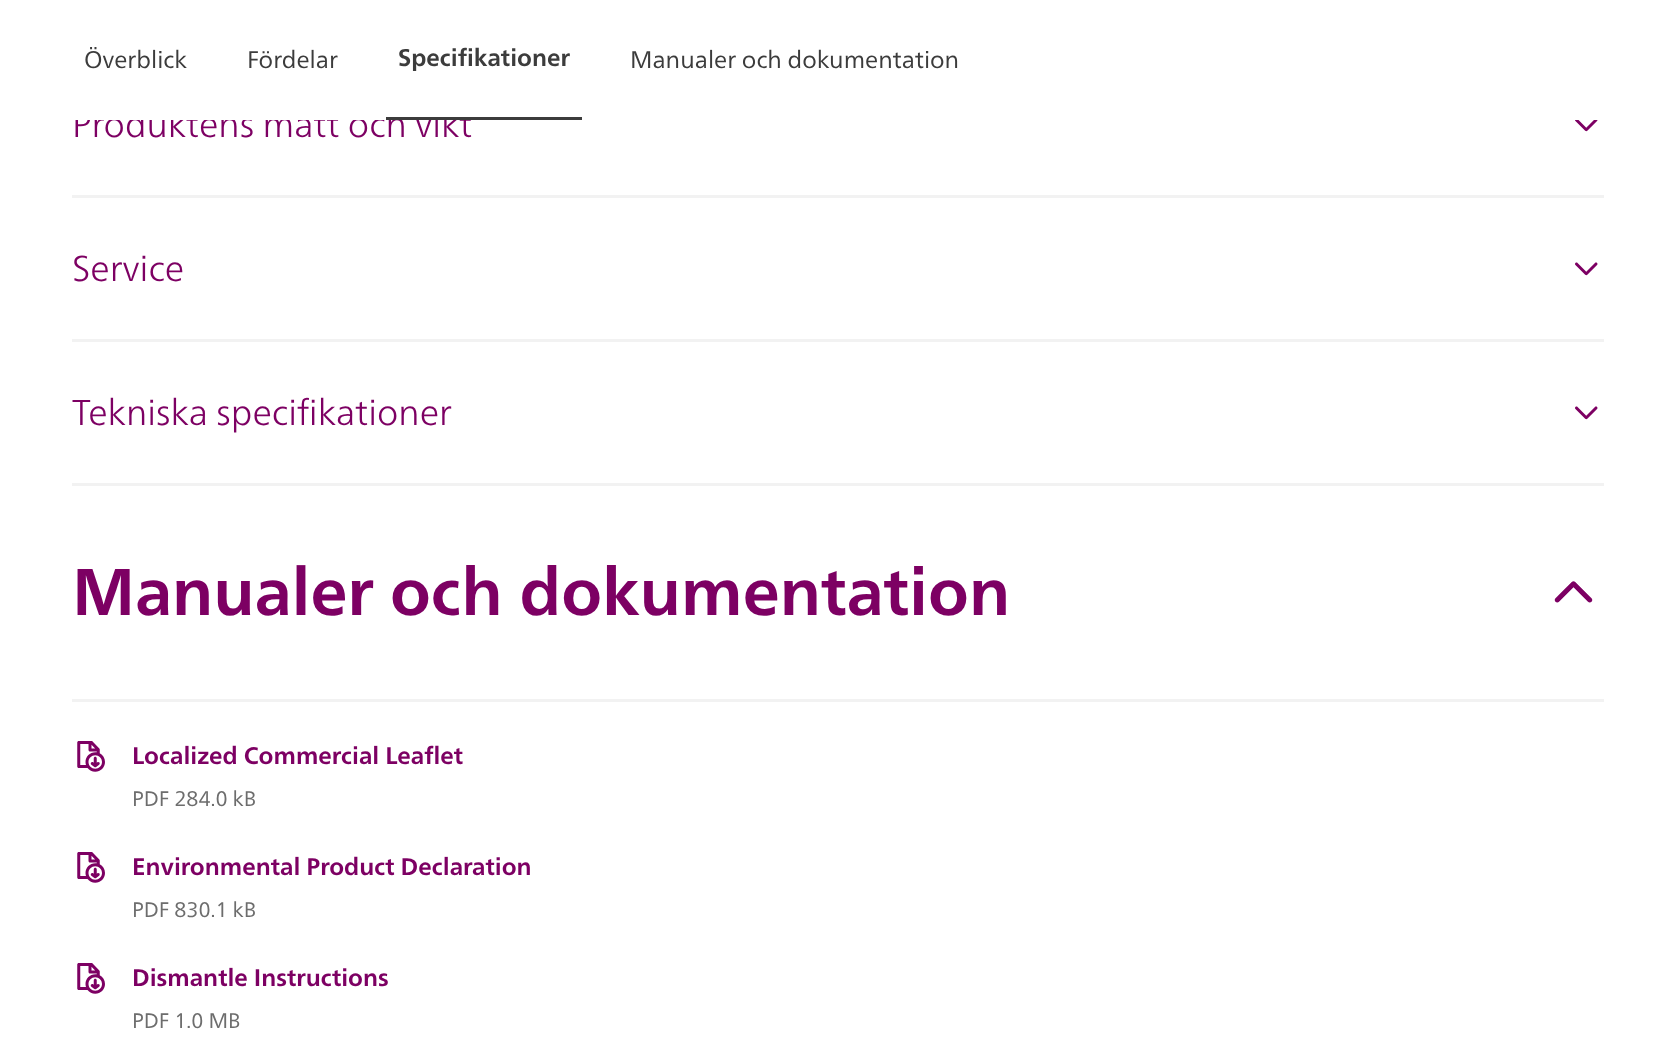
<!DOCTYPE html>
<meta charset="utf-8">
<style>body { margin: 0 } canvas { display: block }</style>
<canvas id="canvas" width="1675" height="1058"></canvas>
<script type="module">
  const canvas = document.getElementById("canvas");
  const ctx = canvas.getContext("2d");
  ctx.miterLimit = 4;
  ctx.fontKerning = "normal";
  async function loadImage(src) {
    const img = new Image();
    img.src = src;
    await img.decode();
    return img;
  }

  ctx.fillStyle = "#ffffff";
  ctx.fillRect(0, 0, 1675, 1058);
  ctx.font = "300 36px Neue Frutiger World";
  ctx.fillStyle = "#7d0063";
  ctx.fillText("Produktens mått och vikt", 72, 137);
  ctx.fillStyle = "#ffffff";
  ctx.fillRect(75, 109, 396, 11);
  ctx.font = "24px Neue Frutiger World";
  ctx.fillStyle = "#3c3c3c";
  ctx.fillText("Överblick", 84, 68);
  ctx.fillText("Fördelar", 247, 68);
  ctx.fillRect(386, 117, 196, 3);
  ctx.font = "bold 24px Neue Frutiger World";
  ctx.fillText("Specifikationer", 398, 66);
  ctx.font = "24px Neue Frutiger World";
  ctx.fillText("Manualer och dokumentation", 630, 68);
  ctx.drawImage(await loadImage("img1.png"), 1575, 120, 23, 12);
  ctx.fillStyle = "#f2f2f2";
  ctx.fillRect(72, 195, 1532, 3);
  ctx.font = "300 36px Neue Frutiger World";
  ctx.fillStyle = "#7d0063";
  ctx.fillText("Service", 72, 281);
  ctx.drawImage(await loadImage("img2.png"), 1575, 262, 23, 14);
  ctx.fillStyle = "#f2f2f2";
  ctx.fillRect(72, 339, 1532, 3);
  ctx.fillRect(72, 483, 1532, 3);
  ctx.fillStyle = "#7d0063";
  ctx.fillText("Tekniska specifikationer", 72, 425);
  ctx.drawImage(await loadImage("img2.png"), 1575, 406, 23, 14);
  ctx.fillStyle = "#f2f2f2";
  ctx.fillRect(72, 699, 1532, 3);
  ctx.font = "bold 66px Neue Frutiger World";
  ctx.fillStyle = "#7d0063";
  ctx.fillText("Manualer och dokumentation", 72, 615);
  ctx.drawImage(await loadImage("img3.png"), 1554, 581, 39, 22);
  ctx.drawImage(await loadImage("img4.png"), 77, 741, 28, 31);
  ctx.font = "bold 24px Neue Frutiger World";
  ctx.fillText("Localized Commercial Leaflet", 132, 764);
  ctx.font = "21px Neue Frutiger World";
  ctx.fillStyle = "#6d6d6d";
  ctx.fillText("PDF 284.0 kB", 132, 806);
  ctx.drawImage(await loadImage("img4.png"), 77, 852, 28, 31);
  ctx.font = "bold 24px Neue Frutiger World";
  ctx.fillStyle = "#7d0063";
  ctx.fillText("Environmental Product Declaration", 132, 875);
  ctx.font = "21px Neue Frutiger World";
  ctx.fillStyle = "#6d6d6d";
  ctx.fillText("PDF 830.1 kB", 132, 917);
  ctx.drawImage(await loadImage("img4.png"), 77, 963, 28, 31);
  ctx.font = "bold 24px Neue Frutiger World";
  ctx.fillStyle = "#7d0063";
  ctx.fillText("Dismantle Instructions", 132, 986);
  ctx.font = "21px Neue Frutiger World";
  ctx.fillStyle = "#6d6d6d";
  ctx.fillText("PDF 1.0 MB", 132, 1028);
</script>
